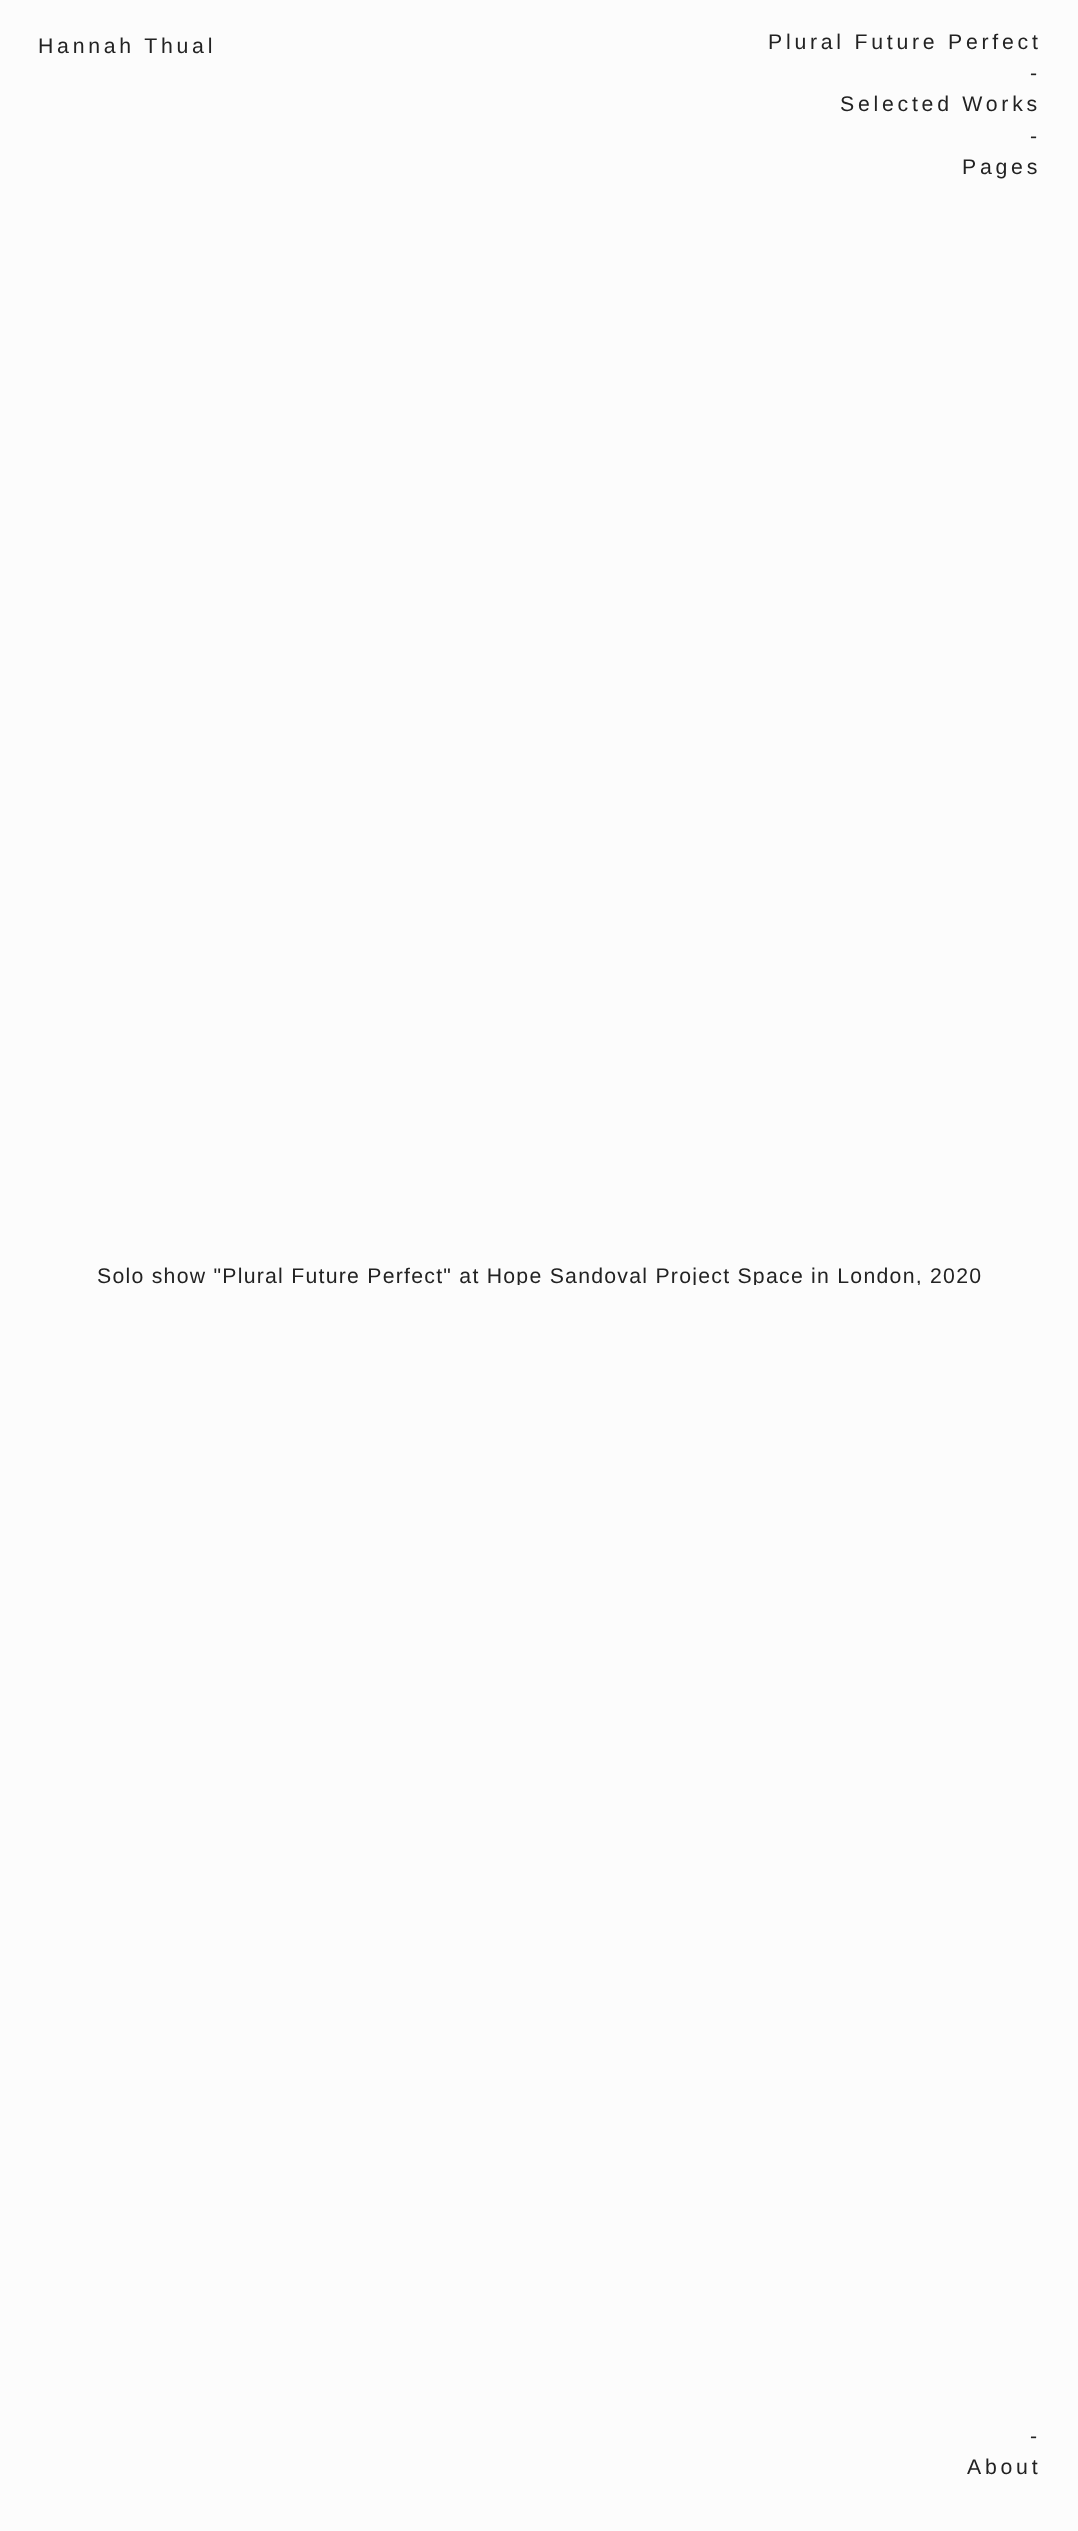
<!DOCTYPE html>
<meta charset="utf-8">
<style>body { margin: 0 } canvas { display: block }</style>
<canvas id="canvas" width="1078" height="2531"></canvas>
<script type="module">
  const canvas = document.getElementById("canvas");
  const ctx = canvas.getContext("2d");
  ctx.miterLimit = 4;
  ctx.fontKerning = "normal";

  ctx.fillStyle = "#fcfcfc";
  ctx.fillRect(0, 0, 1078, 2531);
  ctx.letterSpacing = "3.75px";
  ctx.font = "21.25px Liberation Sans";
  ctx.fillStyle = "#222222";
  ctx.fillText("Hannah Thual", 38, 53);
  ctx.fillText("Plural Future Perfect", 768, 49);
  ctx.fillText("-", 1030, 80);
  ctx.fillText("Selected Works", 840, 111);
  ctx.fillText("-", 1030, 143);
  ctx.fillText("Pages", 962, 174);
  ctx.fillText("-", 1030, 2443);
  ctx.fillText("About", 967, 2474);
  ctx.save();
  ctx.beginPath();
  ctx.rect(0, 1248, 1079, 37);
  ctx.clip();
  ctx.letterSpacing = "1.25px";
  ctx.fillText("Solo show \"Plural Future Perfect\" at Hope Sandoval Project Space in London, 2020", 97, 1283);
  ctx.restore();
</script>
